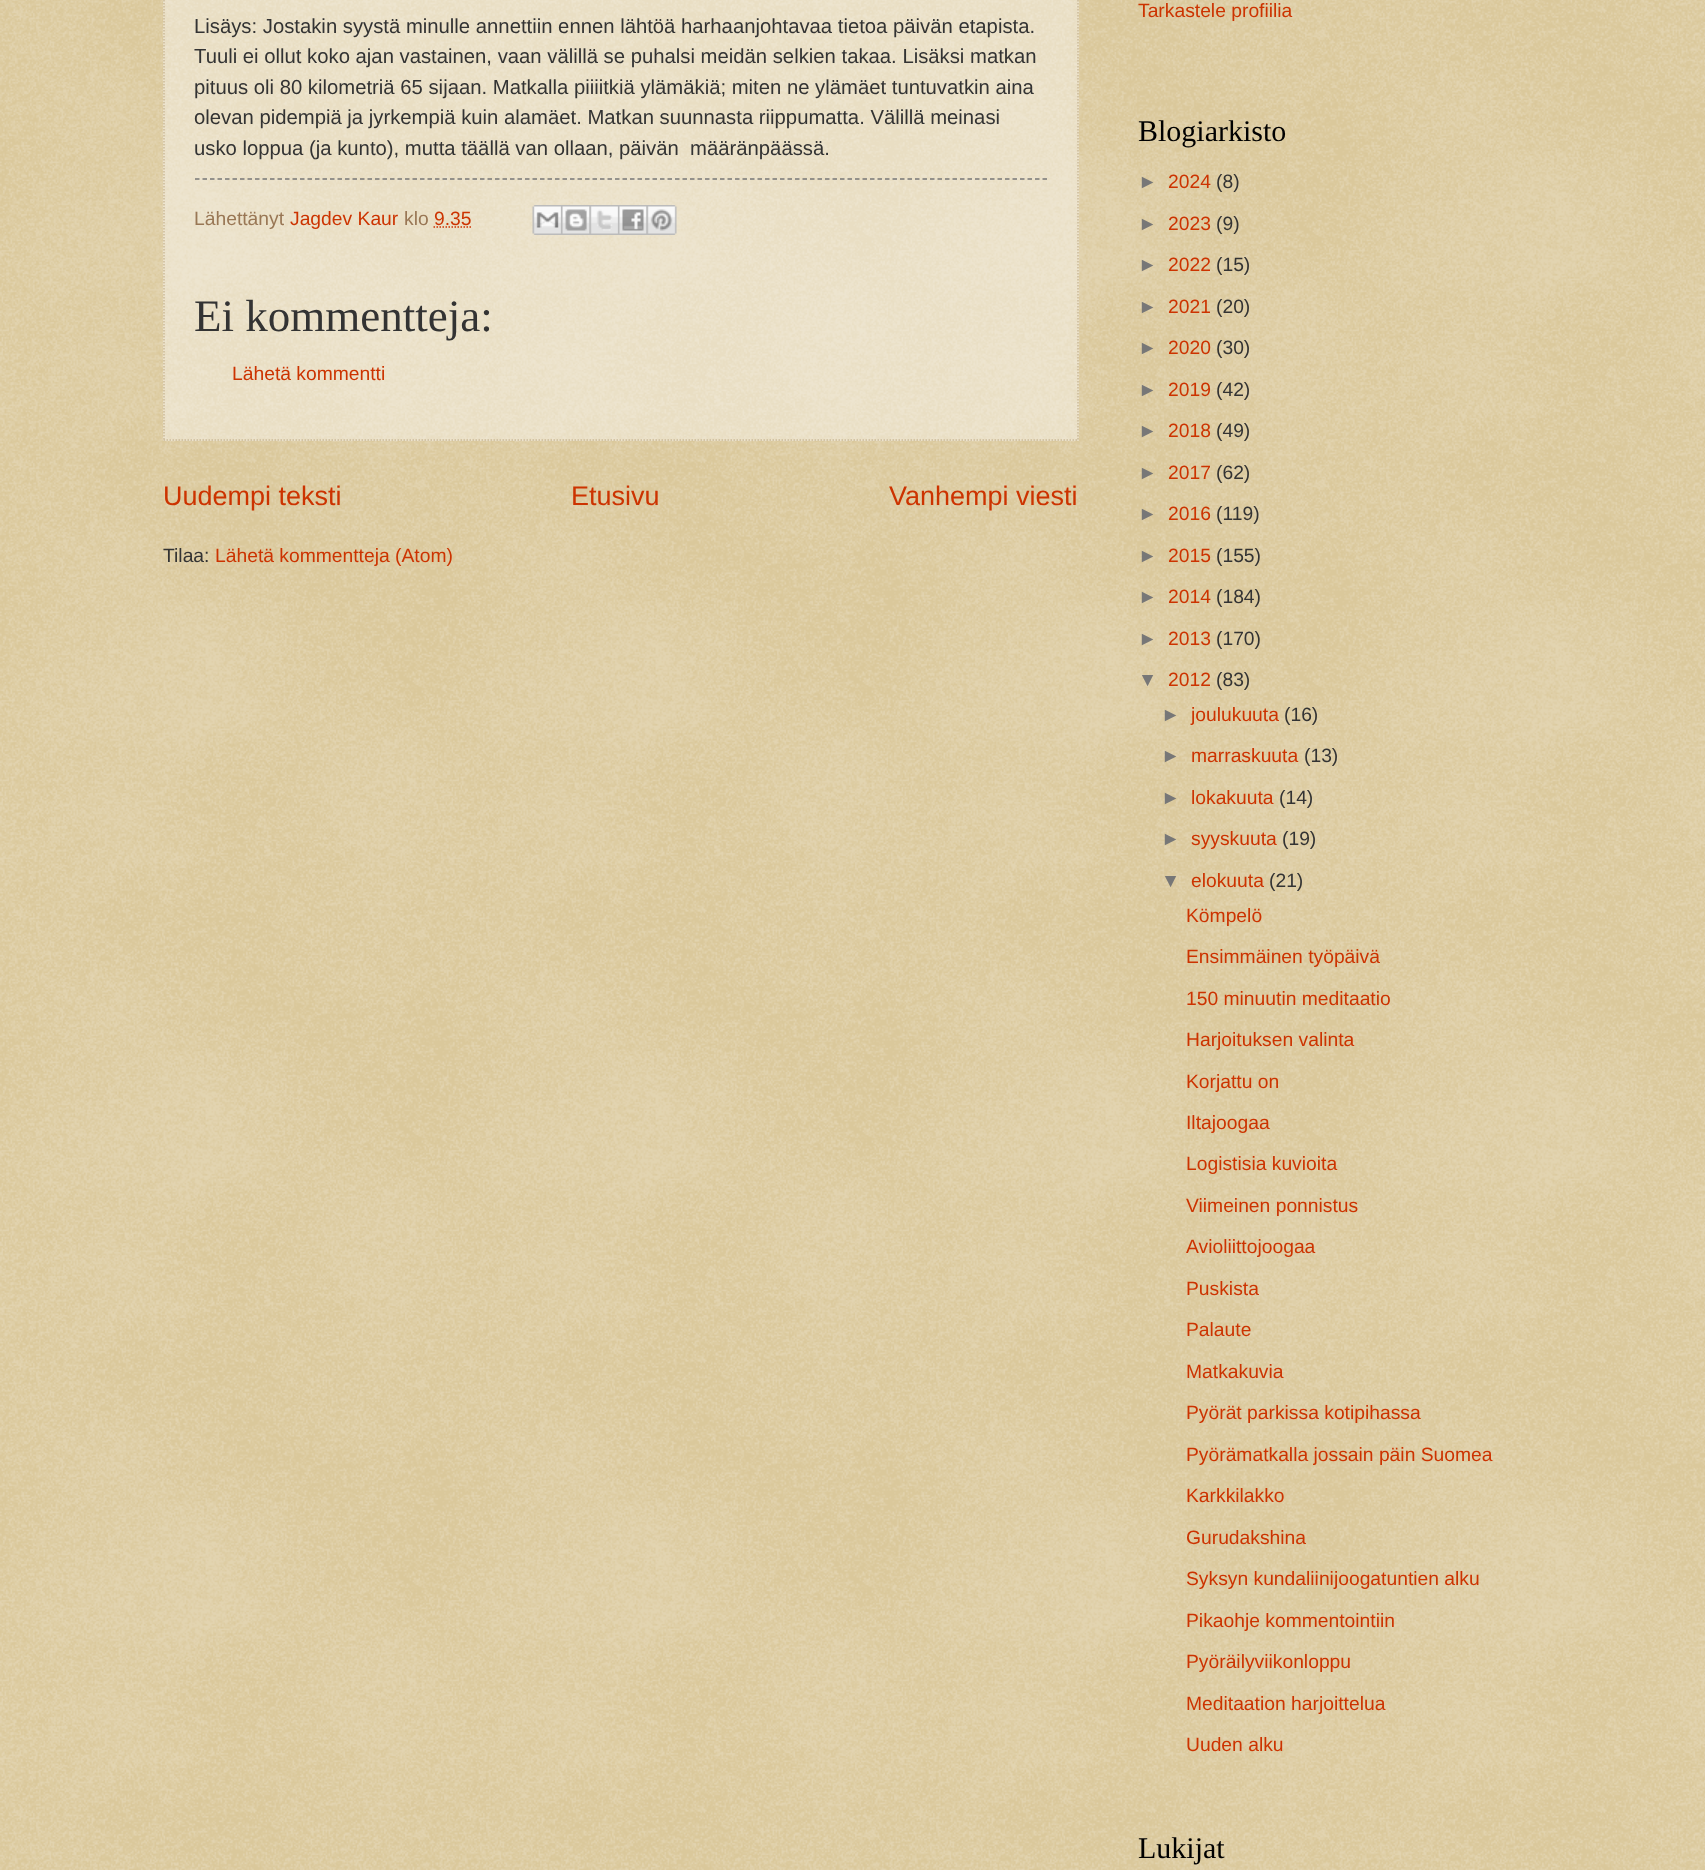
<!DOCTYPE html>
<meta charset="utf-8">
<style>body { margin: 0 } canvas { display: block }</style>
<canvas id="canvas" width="1705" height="1870"></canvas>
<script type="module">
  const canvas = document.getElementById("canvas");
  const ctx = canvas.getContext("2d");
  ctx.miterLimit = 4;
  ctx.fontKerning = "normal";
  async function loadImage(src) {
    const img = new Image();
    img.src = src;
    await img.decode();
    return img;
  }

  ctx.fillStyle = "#c0a154";
  ctx.fillRect(0, 0, 1705, 1870);
  ctx.drawImage(await loadImage("img1.png"), 0, 0, 1705, 1870);
  ctx.fillStyle = "rgba(255, 255, 255, 0.4)";
  ctx.fillRect(163, 0, 916, 441);
  ctx.beginPath();
  ctx.moveTo(1078, -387);
  ctx.lineTo(1078, 441);
  ctx.strokeStyle = "#ccbb99";
  ctx.lineWidth = 1.5;
  ctx.setLineDash([1.5, 1.5]);
  ctx.stroke();
  ctx.beginPath();
  ctx.moveTo(163.5, 440);
  ctx.lineTo(1078.5, 440);
  ctx.stroke();
  ctx.beginPath();
  ctx.moveTo(164, -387);
  ctx.lineTo(164, 441);
  ctx.stroke();
  ctx.font = "20.3px Liberation Sans";
  ctx.fillStyle = "#333333";
  ctx.fillText("Lisäys: Jostakin syystä minulle annettiin ennen lähtöä harhaanjohtavaa tietoa päivän etapista.", 194, 33);
  ctx.fillText("Tuuli ei ollut koko ajan vastainen, vaan välillä se puhalsi meidän selkien takaa. Lisäksi matkan", 194, 63);
  ctx.fillText("pituus oli 80 kilometriä 65 sijaan. Matkalla piiiitkiä ylämäkiä; miten ne ylämäet tuntuvatkin aina", 194, 94);
  ctx.fillText("olevan pidempiä ja jyrkempiä kuin alamäet. Matkan suunnasta riippumatta. Välillä meinasi", 194, 124);
  ctx.fillText("usko loppua (ja kunto), mutta täällä van ollaan, päivän  määränpäässä.", 194, 155);
  ctx.beginPath();
  ctx.moveTo(195, 179);
  ctx.lineTo(1047, 179);
  ctx.strokeStyle = "#777777";
  ctx.setLineDash([4.5, 3]);
  ctx.stroke();
  ctx.font = "19.3px Liberation Sans";
  ctx.fillStyle = "#997755";
  ctx.fillText("Lähettänyt", 194, 225);
  ctx.fillStyle = "#cc3300";
  ctx.fillText("Jagdev Kaur", 290, 225);
  ctx.fillStyle = "#997755";
  ctx.fillText("klo", 404, 225);
  ctx.fillStyle = "#cc3300";
  ctx.fillText("9.35", 434, 225);
  ctx.beginPath();
  ctx.moveTo(433.5, 227);
  ctx.lineTo(471.5, 227);
  ctx.strokeStyle = "#cc3300";
  ctx.setLineDash([1.5, 1.5]);
  ctx.stroke();
  ctx.drawImage(await loadImage("img2.png"), 532, 205, 29, 30);
  ctx.drawImage(await loadImage("img3.png"), 561, 205, 29, 30);
  ctx.drawImage(await loadImage("img4.png"), 589, 205, 29, 30);
  ctx.drawImage(await loadImage("img5.png"), 618, 205, 29, 30);
  ctx.drawImage(await loadImage("img6.png"), 646, 205, 31, 30);
  ctx.font = "45px Liberation Serif";
  ctx.fillStyle = "#333333";
  ctx.fillText("Ei kommentteja:", 194, 331);
  ctx.font = "19.3px Liberation Sans";
  ctx.fillStyle = "#cc3300";
  ctx.fillText("Lähetä kommentti", 232, 380);
  ctx.font = "27px Liberation Sans";
  ctx.fillText("Uudempi teksti", 163, 505);
  ctx.fillText("Etusivu", 571, 505);
  ctx.fillText("Vanhempi viesti", 889, 505);
  ctx.font = "19.3px Liberation Sans";
  ctx.fillStyle = "#333333";
  ctx.fillText("Tilaa:", 163, 562);
  ctx.fillStyle = "#cc3300";
  ctx.fillText("Lähetä kommentteja (Atom)", 215, 562);
  ctx.fillText("Tarkastele profiilia", 1138, 17);
  ctx.font = "30px Liberation Serif";
  ctx.fillStyle = "#000000";
  ctx.fillText("Blogiarkisto", 1138, 141);
  ctx.font = "19.3px Liberation Sans";
  ctx.fillStyle = "#777777";
  ctx.fillText("►", 1138, 188);
  ctx.fillStyle = "#cc3300";
  ctx.fillText("2024", 1168, 188);
  ctx.fillStyle = "#333333";
  ctx.fillText("(8)", 1216, 188);
  ctx.fillStyle = "#777777";
  ctx.fillText("►", 1138, 230);
  ctx.fillStyle = "#cc3300";
  ctx.fillText("2023", 1168, 230);
  ctx.fillStyle = "#333333";
  ctx.fillText("(9)", 1216, 230);
  ctx.fillStyle = "#777777";
  ctx.fillText("►", 1138, 271);
  ctx.fillStyle = "#cc3300";
  ctx.fillText("2022", 1168, 271);
  ctx.fillStyle = "#333333";
  ctx.fillText("(15)", 1216, 271);
  ctx.fillStyle = "#777777";
  ctx.fillText("►", 1138, 313);
  ctx.fillStyle = "#cc3300";
  ctx.fillText("2021", 1168, 313);
  ctx.fillStyle = "#333333";
  ctx.fillText("(20)", 1216, 313);
  ctx.fillStyle = "#777777";
  ctx.fillText("►", 1138, 354);
  ctx.fillStyle = "#cc3300";
  ctx.fillText("2020", 1168, 354);
  ctx.fillStyle = "#333333";
  ctx.fillText("(30)", 1216, 354);
  ctx.fillStyle = "#777777";
  ctx.fillText("►", 1138, 396);
  ctx.fillStyle = "#cc3300";
  ctx.fillText("2019", 1168, 396);
  ctx.fillStyle = "#333333";
  ctx.fillText("(42)", 1216, 396);
  ctx.fillStyle = "#777777";
  ctx.fillText("►", 1138, 437);
  ctx.fillStyle = "#cc3300";
  ctx.fillText("2018", 1168, 437);
  ctx.fillStyle = "#333333";
  ctx.fillText("(49)", 1216, 437);
  ctx.fillStyle = "#777777";
  ctx.fillText("►", 1138, 479);
  ctx.fillStyle = "#cc3300";
  ctx.fillText("2017", 1168, 479);
  ctx.fillStyle = "#333333";
  ctx.fillText("(62)", 1216, 479);
  ctx.fillStyle = "#777777";
  ctx.fillText("►", 1138, 520);
  ctx.fillStyle = "#cc3300";
  ctx.fillText("2016", 1168, 520);
  ctx.fillStyle = "#333333";
  ctx.fillText("(119)", 1216, 520);
  ctx.fillStyle = "#777777";
  ctx.fillText("►", 1138, 562);
  ctx.fillStyle = "#cc3300";
  ctx.fillText("2015", 1168, 562);
  ctx.fillStyle = "#333333";
  ctx.fillText("(155)", 1216, 562);
  ctx.fillStyle = "#777777";
  ctx.fillText("►", 1138, 603);
  ctx.fillStyle = "#cc3300";
  ctx.fillText("2014", 1168, 603);
  ctx.fillStyle = "#333333";
  ctx.fillText("(184)", 1216, 603);
  ctx.fillStyle = "#777777";
  ctx.fillText("►", 1138, 645);
  ctx.fillStyle = "#cc3300";
  ctx.fillText("2013", 1168, 645);
  ctx.fillStyle = "#333333";
  ctx.fillText("(170)", 1216, 645);
  ctx.fillStyle = "#777777";
  ctx.fillText("▼", 1138, 686);
  ctx.fillStyle = "#cc3300";
  ctx.fillText("2012", 1168, 686);
  ctx.fillStyle = "#333333";
  ctx.fillText("(83)", 1216, 686);
  ctx.fillStyle = "#777777";
  ctx.fillText("►", 1161, 721);
  ctx.fillStyle = "#cc3300";
  ctx.fillText("joulukuuta", 1191, 721);
  ctx.fillStyle = "#333333";
  ctx.fillText("(16)", 1284, 721);
  ctx.fillStyle = "#777777";
  ctx.fillText("►", 1161, 762);
  ctx.fillStyle = "#cc3300";
  ctx.fillText("marraskuuta", 1191, 762);
  ctx.fillStyle = "#333333";
  ctx.fillText("(13)", 1304, 762);
  ctx.fillStyle = "#777777";
  ctx.fillText("►", 1161, 804);
  ctx.fillStyle = "#cc3300";
  ctx.fillText("lokakuuta", 1191, 804);
  ctx.fillStyle = "#333333";
  ctx.fillText("(14)", 1279, 804);
  ctx.fillStyle = "#777777";
  ctx.fillText("►", 1161, 845);
  ctx.fillStyle = "#cc3300";
  ctx.fillText("syyskuuta", 1191, 845);
  ctx.fillStyle = "#333333";
  ctx.fillText("(19)", 1282, 845);
  ctx.fillStyle = "#777777";
  ctx.fillText("▼", 1161, 887);
  ctx.fillStyle = "#cc3300";
  ctx.fillText("elokuuta", 1191, 887);
  ctx.fillStyle = "#333333";
  ctx.fillText("(21)", 1269, 887);
  ctx.fillStyle = "#cc3300";
  ctx.fillText("Kömpelö", 1186, 922);
  ctx.fillText("Ensimmäinen työpäivä", 1186, 963);
  ctx.fillText("150 minuutin meditaatio", 1186, 1005);
  ctx.fillText("Harjoituksen valinta", 1186, 1046);
  ctx.fillText("Korjattu on", 1186, 1088);
  ctx.fillText("Iltajoogaa", 1186, 1129);
  ctx.fillText("Logistisia kuvioita", 1186, 1170);
  ctx.fillText("Viimeinen ponnistus", 1186, 1212);
  ctx.fillText("Avioliittojoogaa", 1186, 1253);
  ctx.fillText("Puskista", 1186, 1295);
  ctx.fillText("Palaute", 1186, 1336);
  ctx.fillText("Matkakuvia", 1186, 1378);
  ctx.fillText("Pyörät parkissa kotipihassa", 1186, 1419);
  ctx.fillText("Pyörämatkalla jossain päin Suomea", 1186, 1461);
  ctx.fillText("Karkkilakko", 1186, 1502);
  ctx.fillText("Gurudakshina", 1186, 1544);
  ctx.fillText("Syksyn kundaliinijoogatuntien alku", 1186, 1585);
  ctx.fillText("Pikaohje kommentointiin", 1186, 1627);
  ctx.fillText("Pyöräilyviikonloppu", 1186, 1668);
  ctx.fillText("Meditaation harjoittelua", 1186, 1710);
  ctx.fillText("Uuden alku", 1186, 1751);
  ctx.font = "30px Liberation Serif";
  ctx.fillStyle = "#000000";
  ctx.fillText("Lukijat", 1138, 1858);
</script>
